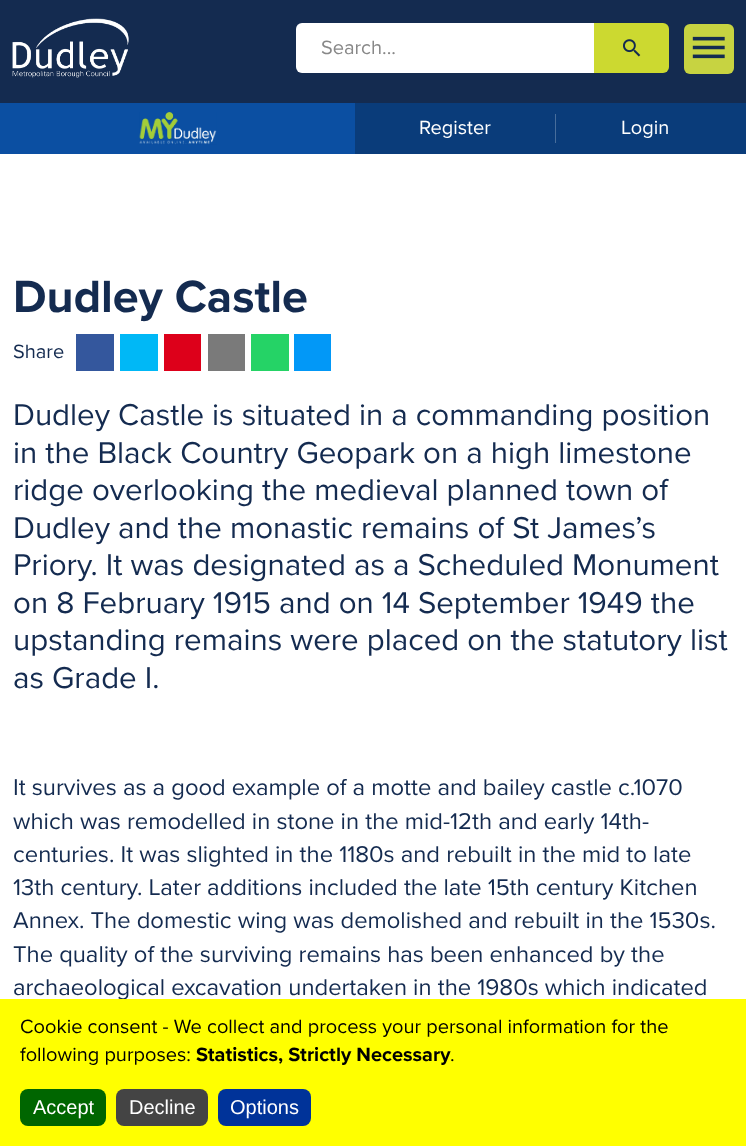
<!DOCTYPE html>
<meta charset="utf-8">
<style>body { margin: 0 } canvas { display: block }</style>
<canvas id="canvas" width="746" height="1146"></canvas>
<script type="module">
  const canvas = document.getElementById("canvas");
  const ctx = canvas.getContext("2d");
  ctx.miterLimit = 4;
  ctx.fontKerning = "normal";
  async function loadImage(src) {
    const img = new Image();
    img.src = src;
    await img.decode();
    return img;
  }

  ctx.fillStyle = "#ffffff";
  ctx.fillRect(0, 0, 746, 1146);
  ctx.fillStyle = "#142b50";
  ctx.fillRect(0, 0, 746, 103);
  ctx.drawImage(await loadImage("img1.png"), 12, 18, 117, 60);
  ctx.fillStyle = "#ffffff";
  ctx.beginPath();
  ctx.roundRect(296, 23, 298, 50, [6, 0, 0, 6]);
  ctx.fill();
  ctx.font = "20px Proxima Nova";
  ctx.fillStyle = "#888888";
  ctx.fillText("Search...", 321, 54);
  ctx.fillStyle = "#ccd930";
  ctx.beginPath();
  ctx.roundRect(594, 23, 75, 50, [0, 6, 6, 0]);
  ctx.fill();
  ctx.drawImage(await loadImage("img2.png"), 623, 39, 18, 18);
  ctx.fillStyle = "#c7d341";
  ctx.beginPath();
  ctx.roundRect(684, 24, 50, 50, 6);
  ctx.fill();
  ctx.drawImage(await loadImage("img3.png"), 692, 36, 33, 23);
  ctx.fillStyle = "#0a3c7a";
  ctx.fillRect(355, 103, 391, 51);
  ctx.fillStyle = "#0b4fa2";
  ctx.fillRect(0, 103, 355, 51);
  ctx.drawImage(await loadImage("img4.png"), 139, 112, 78, 33);
  ctx.fillStyle = "#ffffff";
  ctx.fillText("Register", 419, 134);
  ctx.fillStyle = "#476d9b";
  ctx.fillRect(555, 114, 1, 29);
  ctx.fillStyle = "#ffffff";
  ctx.fillText("Login", 621, 134);
  ctx.font = "bold 46.75px Proxima Nova";
  ctx.fillStyle = "#142b50";
  ctx.fillText("Dudley Castle", 13, 312);
  ctx.font = "20px Proxima Nova";
  ctx.fillText("Share", 13, 358);
  ctx.fillStyle = "#34579d";
  ctx.fillRect(76, 334, 38, 37);
  ctx.fillStyle = "#00b8f6";
  ctx.fillRect(120, 334, 38, 37);
  ctx.fillStyle = "#dd001a";
  ctx.fillRect(164, 334, 37, 37);
  ctx.fillStyle = "#7a7a7a";
  ctx.fillRect(208, 334, 37, 37);
  ctx.fillStyle = "#25d366";
  ctx.fillRect(251, 334, 38, 37);
  ctx.fillStyle = "#0298f7";
  ctx.fillRect(294, 334, 37, 37);
  ctx.font = "31.25px Proxima Nova";
  ctx.fillStyle = "#142b50";
  ctx.fillText("Dudley Castle is situated in a commanding position", 13, 425);
  ctx.fillText("in the Black Country Geopark on a high limestone", 13, 463);
  ctx.fillText("ridge overlooking the medieval planned town of", 13, 500);
  ctx.fillText("Dudley and the monastic remains of St James’s", 13, 538);
  ctx.fillText("Priory. It was designated as a Scheduled Monument", 13, 575);
  ctx.fillText("on 8 February 1915 and on 14 September 1949 the", 13, 613);
  ctx.fillText("upstanding remains were placed on the statutory list", 13, 650);
  ctx.fillText("as Grade I.", 13, 688);
  ctx.font = "23.75px Proxima Nova";
  ctx.fillText("It survives as a good example of a motte and bailey castle c.1070", 13, 795);
  ctx.fillText("which was remodelled in stone in the mid-12th and early 14th-", 13, 829);
  ctx.fillText("centuries. It was slighted in the 1180s and rebuilt in the mid to late", 13, 862);
  ctx.fillText("13th century. Later additions included the late 15th century Kitchen", 13, 895);
  ctx.fillText("Annex. The domestic wing was demolished and rebuilt in the 1530s.", 13, 928);
  ctx.fillText("The quality of the surviving remains has been enhanced by the", 13, 962);
  ctx.fillText("archaeological excavation undertaken in the 1980s which indicated", 13, 995);
  ctx.fillStyle = "#ffff00";
  ctx.fillRect(0, 999, 746, 147);
  ctx.font = "20px Proxima Nova";
  ctx.fillStyle = "#000000";
  ctx.fillText("Cookie consent - We collect and process your personal information for the", 20, 1033);
  ctx.fillText("following purposes:", 20, 1061);
  ctx.font = "bold 20px Proxima Nova";
  ctx.fillText("Statistics, Strictly Necessary", 196, 1061);
  ctx.font = "20px Proxima Nova";
  ctx.fillText(".", 450, 1061);
  ctx.fillStyle = "#006600";
  ctx.beginPath();
  ctx.roundRect(20, 1089, 86, 37, 8);
  ctx.fill();
  ctx.font = "20px Liberation Sans";
  ctx.fillStyle = "#ffffff";
  ctx.fillText("Accept", 33, 1114);
  ctx.fillStyle = "#444444";
  ctx.beginPath();
  ctx.roundRect(116, 1089, 92, 37, 8);
  ctx.fill();
  ctx.fillStyle = "#ffffff";
  ctx.fillText("Decline", 129, 1114);
  ctx.fillStyle = "#003399";
  ctx.beginPath();
  ctx.roundRect(218, 1089, 93, 37, 8);
  ctx.fill();
  ctx.fillStyle = "#ffffff";
  ctx.fillText("Options", 230, 1114);
</script>
